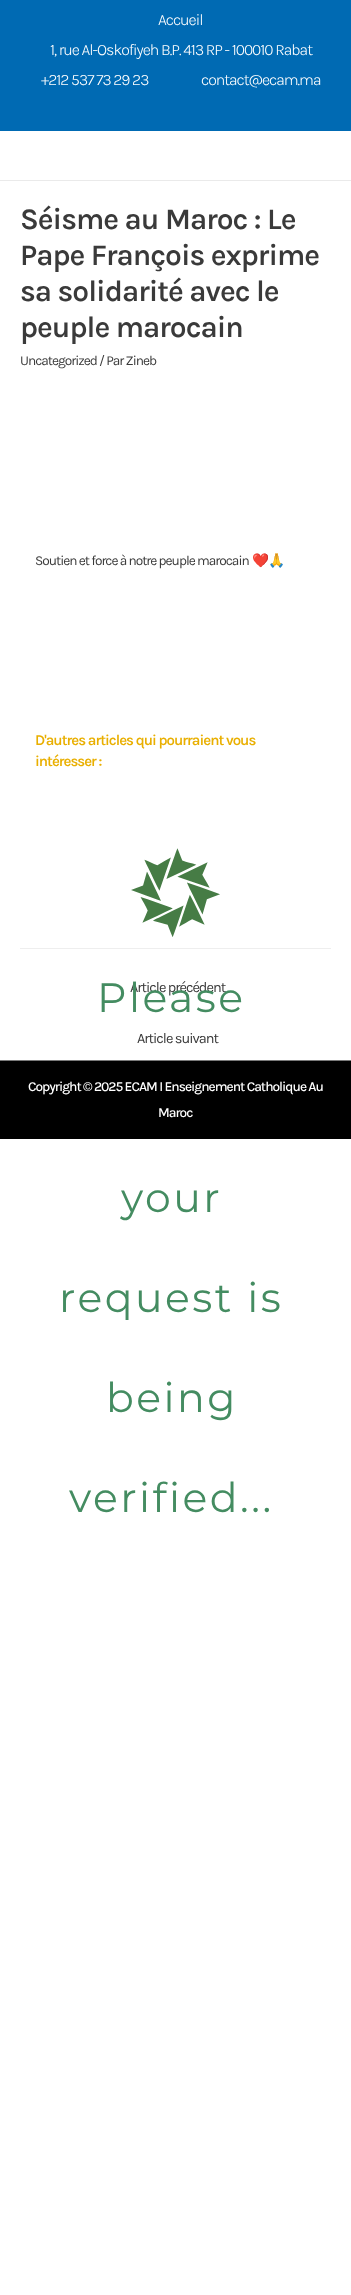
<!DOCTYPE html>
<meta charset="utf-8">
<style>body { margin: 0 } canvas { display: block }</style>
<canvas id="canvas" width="351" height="2295"></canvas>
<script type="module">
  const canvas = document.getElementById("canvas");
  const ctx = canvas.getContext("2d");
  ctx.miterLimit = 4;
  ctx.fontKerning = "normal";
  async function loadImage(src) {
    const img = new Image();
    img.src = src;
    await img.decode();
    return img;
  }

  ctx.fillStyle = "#ffffff";
  ctx.fillRect(0, 0, 351, 2295);
  ctx.fillStyle = "#006ab3";
  ctx.fillRect(0, 0, 351, 131);
  ctx.letterSpacing = "-1px";
  ctx.font = "300 16px Karla";
  ctx.fillStyle = "#ffffff";
  ctx.fillText("Accueil", 158, 25);
  ctx.fillText("1, rue Al-Oskofiyeh B.P. 413 RP - 100010 Rabat", 50, 55);
  ctx.fillText("+212 537 73 29 23", 41, 85);
  ctx.fillText("contact@ecam.ma", 201, 85);
  ctx.fillStyle = "#eaeaea";
  ctx.fillRect(0, 180, 351, 1);
  ctx.font = "600 30px Karla";
  ctx.fillStyle = "#3a3a3a";
  ctx.fillText("Séisme au Maroc : Le", 20, 229);
  ctx.fillText("Pape François exprime", 20, 265);
  ctx.fillText("sa solidarité avec le", 20, 301);
  ctx.fillText("peuple marocain", 20, 337);
  ctx.font = "13.7px Karla";
  ctx.fillText("Uncategorized / Par Zineb", 20, 365);
  ctx.fillText("Soutien et force à notre peuple marocain", 35, 565);
  ctx.font = "13.7px Noto Color Emoji";
  ctx.fillText("❤️🙏", 252, 565);
  ctx.font = "600 15px Karla";
  ctx.fillStyle = "#e9af00";
  ctx.fillText("D'autres articles qui pourraient vous", 35, 745);
  ctx.fillText("intéresser :", 35, 766);
  ctx.drawImage(await loadImage("img1.png"), 131, 848, 89, 89);
  ctx.font = "14.5px Karla";
  ctx.fillStyle = "#3a3a3a";
  ctx.fillText("Article précédent", 130, 992);
  ctx.letterSpacing = "2.5px";
  ctx.font = "41px Montserrat";
  ctx.fillStyle = "#448c61";
  ctx.fillText("Please", 97, 1012);
  ctx.fillText("your", 121, 1212);
  ctx.fillText("request is", 59, 1312);
  ctx.fillText("being", 106, 1412);
  ctx.fillText("verified...", 69, 1512);
  ctx.fillStyle = "#eeeeee";
  ctx.fillRect(20, 948, 311, 1);
  ctx.letterSpacing = "-1px";
  ctx.font = "14.5px Karla";
  ctx.fillStyle = "#3a3a3a";
  ctx.fillText("Article suivant", 137, 1043);
  ctx.fillStyle = "#7a7a7a";
  ctx.fillRect(0, 1060, 351, 1);
  ctx.fillStyle = "#000000";
  ctx.fillRect(0, 1061, 351, 78);
  ctx.font = "500 13.7px Karla";
  ctx.fillStyle = "#ffffff";
  ctx.fillText("Copyright © 2025 ECAM I Enseignement Catholique Au", 28, 1091);
  ctx.fillText("Maroc", 158, 1117);
</script>
